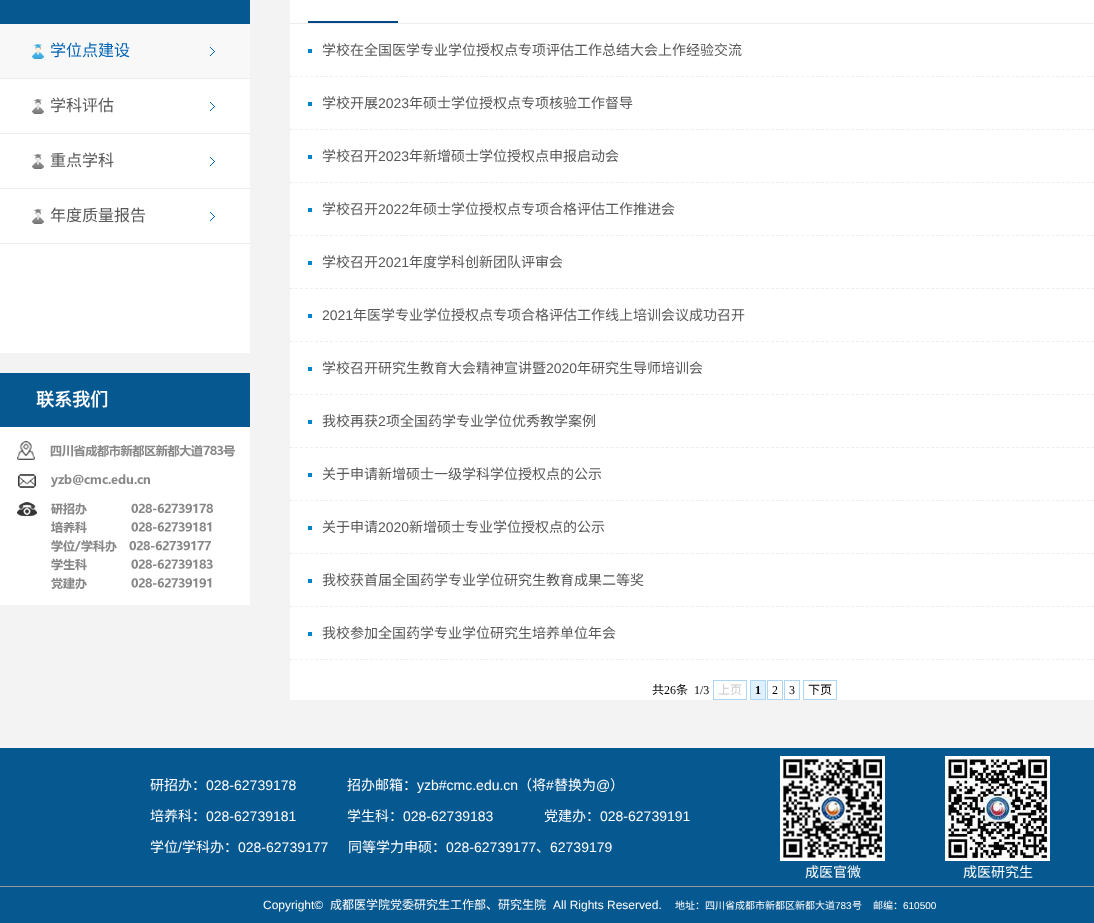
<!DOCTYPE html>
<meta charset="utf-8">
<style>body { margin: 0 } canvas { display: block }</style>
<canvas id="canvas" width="1094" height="923"></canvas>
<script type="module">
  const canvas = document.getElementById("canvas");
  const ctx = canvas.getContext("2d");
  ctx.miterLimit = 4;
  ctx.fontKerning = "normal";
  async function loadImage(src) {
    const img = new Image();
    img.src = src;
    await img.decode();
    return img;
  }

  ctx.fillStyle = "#f3f3f3";
  ctx.fillRect(0, 0, 1094, 923);
  ctx.fillStyle = "#ffffff";
  ctx.fillRect(0, 79, 250, 274);
  ctx.fillStyle = "#065890";
  ctx.fillRect(0, 0, 250, 24);
  ctx.fillStyle = "#f8f8f8";
  ctx.fillRect(0, 24, 250, 54);
  ctx.drawImage(await loadImage("img1.png"), 210, 47, 5, 9);
  ctx.fillStyle = "#ececec";
  ctx.fillRect(0, 78, 250, 1);
  ctx.drawImage(await loadImage("img2.png"), 32, 44, 12, 15);
  ctx.font = "16px Noto Sans CJK SC";
  ctx.fillStyle = "#0264b6";
  ctx.fillText("学位点建设", 50, 56);
  ctx.drawImage(await loadImage("img3.png"), 210, 102, 5, 9);
  ctx.fillStyle = "#ececec";
  ctx.fillRect(0, 133, 250, 1);
  ctx.drawImage(await loadImage("img4.png"), 32, 99, 12, 15);
  ctx.fillStyle = "#585858";
  ctx.fillText("学科评估", 50, 111);
  ctx.drawImage(await loadImage("img3.png"), 210, 157, 5, 9);
  ctx.fillStyle = "#ececec";
  ctx.fillRect(0, 188, 250, 1);
  ctx.drawImage(await loadImage("img4.png"), 32, 154, 12, 15);
  ctx.fillStyle = "#585858";
  ctx.fillText("重点学科", 50, 166);
  ctx.drawImage(await loadImage("img3.png"), 210, 212, 5, 9);
  ctx.fillStyle = "#ececec";
  ctx.fillRect(0, 243, 250, 1);
  ctx.drawImage(await loadImage("img4.png"), 32, 209, 12, 15);
  ctx.fillStyle = "#585858";
  ctx.fillText("年度质量报告", 50, 221);
  ctx.fillStyle = "#065890";
  ctx.fillRect(0, 373, 250, 54);
  ctx.font = "bold 18px Noto Sans CJK SC";
  ctx.fillStyle = "#ffffff";
  ctx.fillText("联系我们", 36, 406);
  ctx.drawImage(await loadImage("img5.png"), 0, 427, 250, 178);
  ctx.fillRect(290, 0, 804, 700);
  ctx.fillStyle = "#ececec";
  ctx.fillRect(290, 23, 804, 1);
  ctx.fillStyle = "#004987";
  ctx.fillRect(308, 21, 90, 2);
  ctx.fillStyle = "#0084cd";
  ctx.fillRect(308, 49, 4, 4);
  ctx.beginPath();
  ctx.moveTo(290, 76.5);
  ctx.lineTo(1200, 76.5);
  ctx.strokeStyle = "#eeeeee";
  ctx.setLineDash([3, 2.01]);
  ctx.stroke();
  ctx.font = "14px Noto Sans CJK SC";
  ctx.fillStyle = "#585858";
  ctx.fillText("学校在全国医学专业学位授权点专项评估工作总结大会上作经验交流", 322, 55);
  ctx.fillStyle = "#0084cd";
  ctx.fillRect(308, 102, 4, 4);
  ctx.beginPath();
  ctx.moveTo(290, 129.5);
  ctx.lineTo(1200, 129.5);
  ctx.stroke();
  ctx.fillStyle = "#585858";
  ctx.fillText("学校开展", 322, 108);
  ctx.font = "14px Liberation Sans";
  ctx.fillText("2023", 378, 108);
  ctx.font = "14px Noto Sans CJK SC";
  ctx.fillText("年硕士学位授权点专项核验工作督导", 409, 108);
  ctx.fillStyle = "#0084cd";
  ctx.fillRect(308, 155, 4, 4);
  ctx.beginPath();
  ctx.moveTo(290, 182.5);
  ctx.lineTo(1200, 182.5);
  ctx.stroke();
  ctx.fillStyle = "#585858";
  ctx.fillText("学校召开", 322, 161);
  ctx.font = "14px Liberation Sans";
  ctx.fillText("2023", 378, 161);
  ctx.font = "14px Noto Sans CJK SC";
  ctx.fillText("年新增硕士学位授权点申报启动会", 409, 161);
  ctx.fillStyle = "#0084cd";
  ctx.fillRect(308, 208, 4, 4);
  ctx.beginPath();
  ctx.moveTo(290, 235.5);
  ctx.lineTo(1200, 235.5);
  ctx.stroke();
  ctx.fillStyle = "#585858";
  ctx.fillText("学校召开", 322, 214);
  ctx.font = "14px Liberation Sans";
  ctx.fillText("2022", 378, 214);
  ctx.font = "14px Noto Sans CJK SC";
  ctx.fillText("年硕士学位授权点专项合格评估工作推进会", 409, 214);
  ctx.fillStyle = "#0084cd";
  ctx.fillRect(308, 261, 4, 4);
  ctx.beginPath();
  ctx.moveTo(290, 288.5);
  ctx.lineTo(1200, 288.5);
  ctx.stroke();
  ctx.fillStyle = "#585858";
  ctx.fillText("学校召开", 322, 267);
  ctx.font = "14px Liberation Sans";
  ctx.fillText("2021", 378, 267);
  ctx.font = "14px Noto Sans CJK SC";
  ctx.fillText("年度学科创新团队评审会", 409, 267);
  ctx.fillStyle = "#0084cd";
  ctx.fillRect(308, 314, 4, 4);
  ctx.beginPath();
  ctx.moveTo(290, 341.5);
  ctx.lineTo(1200, 341.5);
  ctx.stroke();
  ctx.font = "14px Liberation Sans";
  ctx.fillStyle = "#585858";
  ctx.fillText("2021", 322, 320);
  ctx.font = "14px Noto Sans CJK SC";
  ctx.fillText("年医学专业学位授权点专项合格评估工作线上培训会议成功召开", 353, 320);
  ctx.fillStyle = "#0084cd";
  ctx.fillRect(308, 367, 4, 4);
  ctx.beginPath();
  ctx.moveTo(290, 394.5);
  ctx.lineTo(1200, 394.5);
  ctx.stroke();
  ctx.fillStyle = "#585858";
  ctx.fillText("学校召开研究生教育大会精神宣讲暨", 322, 373);
  ctx.font = "14px Liberation Sans";
  ctx.fillText("2020", 546, 373);
  ctx.font = "14px Noto Sans CJK SC";
  ctx.fillText("年研究生导师培训会", 577, 373);
  ctx.fillStyle = "#0084cd";
  ctx.fillRect(308, 420, 4, 4);
  ctx.beginPath();
  ctx.moveTo(290, 447.5);
  ctx.lineTo(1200, 447.5);
  ctx.stroke();
  ctx.fillStyle = "#585858";
  ctx.fillText("我校再获", 322, 426);
  ctx.font = "14px Liberation Sans";
  ctx.fillText("2", 378, 426);
  ctx.font = "14px Noto Sans CJK SC";
  ctx.fillText("项全国药学专业学位优秀教学案例", 386, 426);
  ctx.fillStyle = "#0084cd";
  ctx.fillRect(308, 473, 4, 4);
  ctx.beginPath();
  ctx.moveTo(290, 500.5);
  ctx.lineTo(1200, 500.5);
  ctx.stroke();
  ctx.fillStyle = "#585858";
  ctx.fillText("关于申请新增硕士一级学科学位授权点的公示", 322, 479);
  ctx.fillStyle = "#0084cd";
  ctx.fillRect(308, 526, 4, 4);
  ctx.beginPath();
  ctx.moveTo(290, 553.5);
  ctx.lineTo(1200, 553.5);
  ctx.stroke();
  ctx.fillStyle = "#585858";
  ctx.fillText("关于申请", 322, 532);
  ctx.font = "14px Liberation Sans";
  ctx.fillText("2020", 378, 532);
  ctx.font = "14px Noto Sans CJK SC";
  ctx.fillText("新增硕士专业学位授权点的公示", 409, 532);
  ctx.fillStyle = "#0084cd";
  ctx.fillRect(308, 579, 4, 4);
  ctx.beginPath();
  ctx.moveTo(290, 606.5);
  ctx.lineTo(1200, 606.5);
  ctx.stroke();
  ctx.fillStyle = "#585858";
  ctx.fillText("我校获首届全国药学专业学位研究生教育成果二等奖", 322, 585);
  ctx.fillStyle = "#0084cd";
  ctx.fillRect(308, 632, 4, 4);
  ctx.beginPath();
  ctx.moveTo(290, 659.5);
  ctx.lineTo(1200, 659.5);
  ctx.stroke();
  ctx.fillStyle = "#585858";
  ctx.fillText("我校参加全国药学专业学位研究生培养单位年会", 322, 638);
  ctx.font = "12px Noto Sans CJK SC";
  ctx.fillStyle = "#000000";
  ctx.fillText("共", 652, 694);
  ctx.font = "12px Liberation Serif";
  ctx.fillText("26", 664, 694);
  ctx.font = "12px Noto Sans CJK SC";
  ctx.fillText("条", 676, 694);
  ctx.font = "12px Liberation Serif";
  ctx.fillText("1/3", 694, 694);
  ctx.strokeStyle = "#afd5f5";
  ctx.setLineDash([]);
  ctx.strokeRect(713.5, 680.5, 33, 19);
  ctx.font = "12px Noto Sans CJK SC";
  ctx.fillStyle = "#cccccc";
  ctx.fillText("上页", 718, 694);
  ctx.fillStyle = "#e1f0fd";
  ctx.beginPath();
  ctx.rect(750.5, 680.5, 15, 19);
  ctx.fill();
  ctx.stroke();
  ctx.font = "bold 12px Liberation Serif";
  ctx.fillStyle = "#000000";
  ctx.fillText("1", 755, 694);
  ctx.strokeRect(767.5, 680.5, 15, 19);
  ctx.font = "12px Liberation Serif";
  ctx.fillText("2", 772, 694);
  ctx.strokeRect(784.5, 680.5, 15, 19);
  ctx.fillText("3", 789, 694);
  ctx.strokeRect(803.5, 680.5, 33, 19);
  ctx.font = "12px Noto Sans CJK SC";
  ctx.fillText("下页", 808, 694);
  ctx.fillStyle = "#065890";
  ctx.fillRect(0, 748, 1094, 175);
  ctx.font = "14px Noto Sans CJK SC";
  ctx.fillStyle = "#ffffff";
  ctx.fillText("研招办：", 150, 790);
  ctx.font = "14px Liberation Sans";
  ctx.fillText("028-62739178", 206, 790);
  ctx.font = "14px Noto Sans CJK SC";
  ctx.fillText("招办邮箱：", 347, 790);
  ctx.font = "14px Liberation Sans";
  ctx.fillText("yzb#cmc.edu.cn", 417, 790);
  ctx.font = "14px Noto Sans CJK SC";
  ctx.fillText("（将", 518, 790);
  ctx.font = "14px Liberation Sans";
  ctx.fillText("#", 546, 790);
  ctx.font = "14px Noto Sans CJK SC";
  ctx.fillText("替换为", 554, 790);
  ctx.font = "14px Liberation Sans";
  ctx.fillText("@", 596, 790);
  ctx.font = "14px Noto Sans CJK SC";
  ctx.fillText("）", 610, 790);
  ctx.fillText("培养科：", 150, 821);
  ctx.font = "14px Liberation Sans";
  ctx.fillText("028-62739181", 206, 821);
  ctx.font = "14px Noto Sans CJK SC";
  ctx.fillText("学生科：", 347, 821);
  ctx.font = "14px Liberation Sans";
  ctx.fillText("028-62739183", 403, 821);
  ctx.font = "14px Noto Sans CJK SC";
  ctx.fillText("党建办：", 544, 821);
  ctx.font = "14px Liberation Sans";
  ctx.fillText("028-62739191", 600, 821);
  ctx.font = "14px Noto Sans CJK SC";
  ctx.fillText("学位", 150, 852);
  ctx.font = "14px Liberation Sans";
  ctx.fillText("/", 178, 852);
  ctx.font = "14px Noto Sans CJK SC";
  ctx.fillText("学科办：", 182, 852);
  ctx.font = "14px Liberation Sans";
  ctx.fillText("028-62739177", 238, 852);
  ctx.font = "14px Noto Sans CJK SC";
  ctx.fillText("同等学力申硕：", 348, 852);
  ctx.font = "14px Liberation Sans";
  ctx.fillText("028-62739177", 446, 852);
  ctx.font = "14px Noto Sans CJK SC";
  ctx.fillText("、", 536, 852);
  ctx.font = "14px Liberation Sans";
  ctx.fillText("62739179", 550, 852);
  ctx.drawImage(await loadImage("img6.png"), 780, 756, 105, 105);
  ctx.font = "14px Noto Sans CJK SC";
  ctx.fillText("成医官微", 805, 877);
  ctx.drawImage(await loadImage("img7.png"), 945, 756, 105, 105);
  ctx.fillText("成医研究生", 963, 877);
  ctx.fillStyle = "#999999";
  ctx.fillRect(0, 886, 1094, 1);
  ctx.font = "12px Liberation Sans";
  ctx.fillStyle = "#ffffff";
  ctx.fillText("Copyright©", 263, 909);
  ctx.font = "12px Noto Sans CJK SC";
  ctx.fillText("成都医学院党委研究生工作部、研究生院", 330, 909);
  ctx.font = "12px Liberation Sans";
  ctx.fillText("All Rights Reserved.", 553, 909);
  ctx.font = "10px Noto Sans CJK SC";
  ctx.fillText("地址：四川省成都市新都区新都大道", 675, 909);
  ctx.font = "10px Liberation Sans";
  ctx.fillText("783", 835, 909);
  ctx.font = "10px Noto Sans CJK SC";
  ctx.fillText("号", 852, 909);
  ctx.fillText("邮编：", 873, 909);
  ctx.font = "10px Liberation Sans";
  ctx.fillText("610500", 903, 909);
</script>
